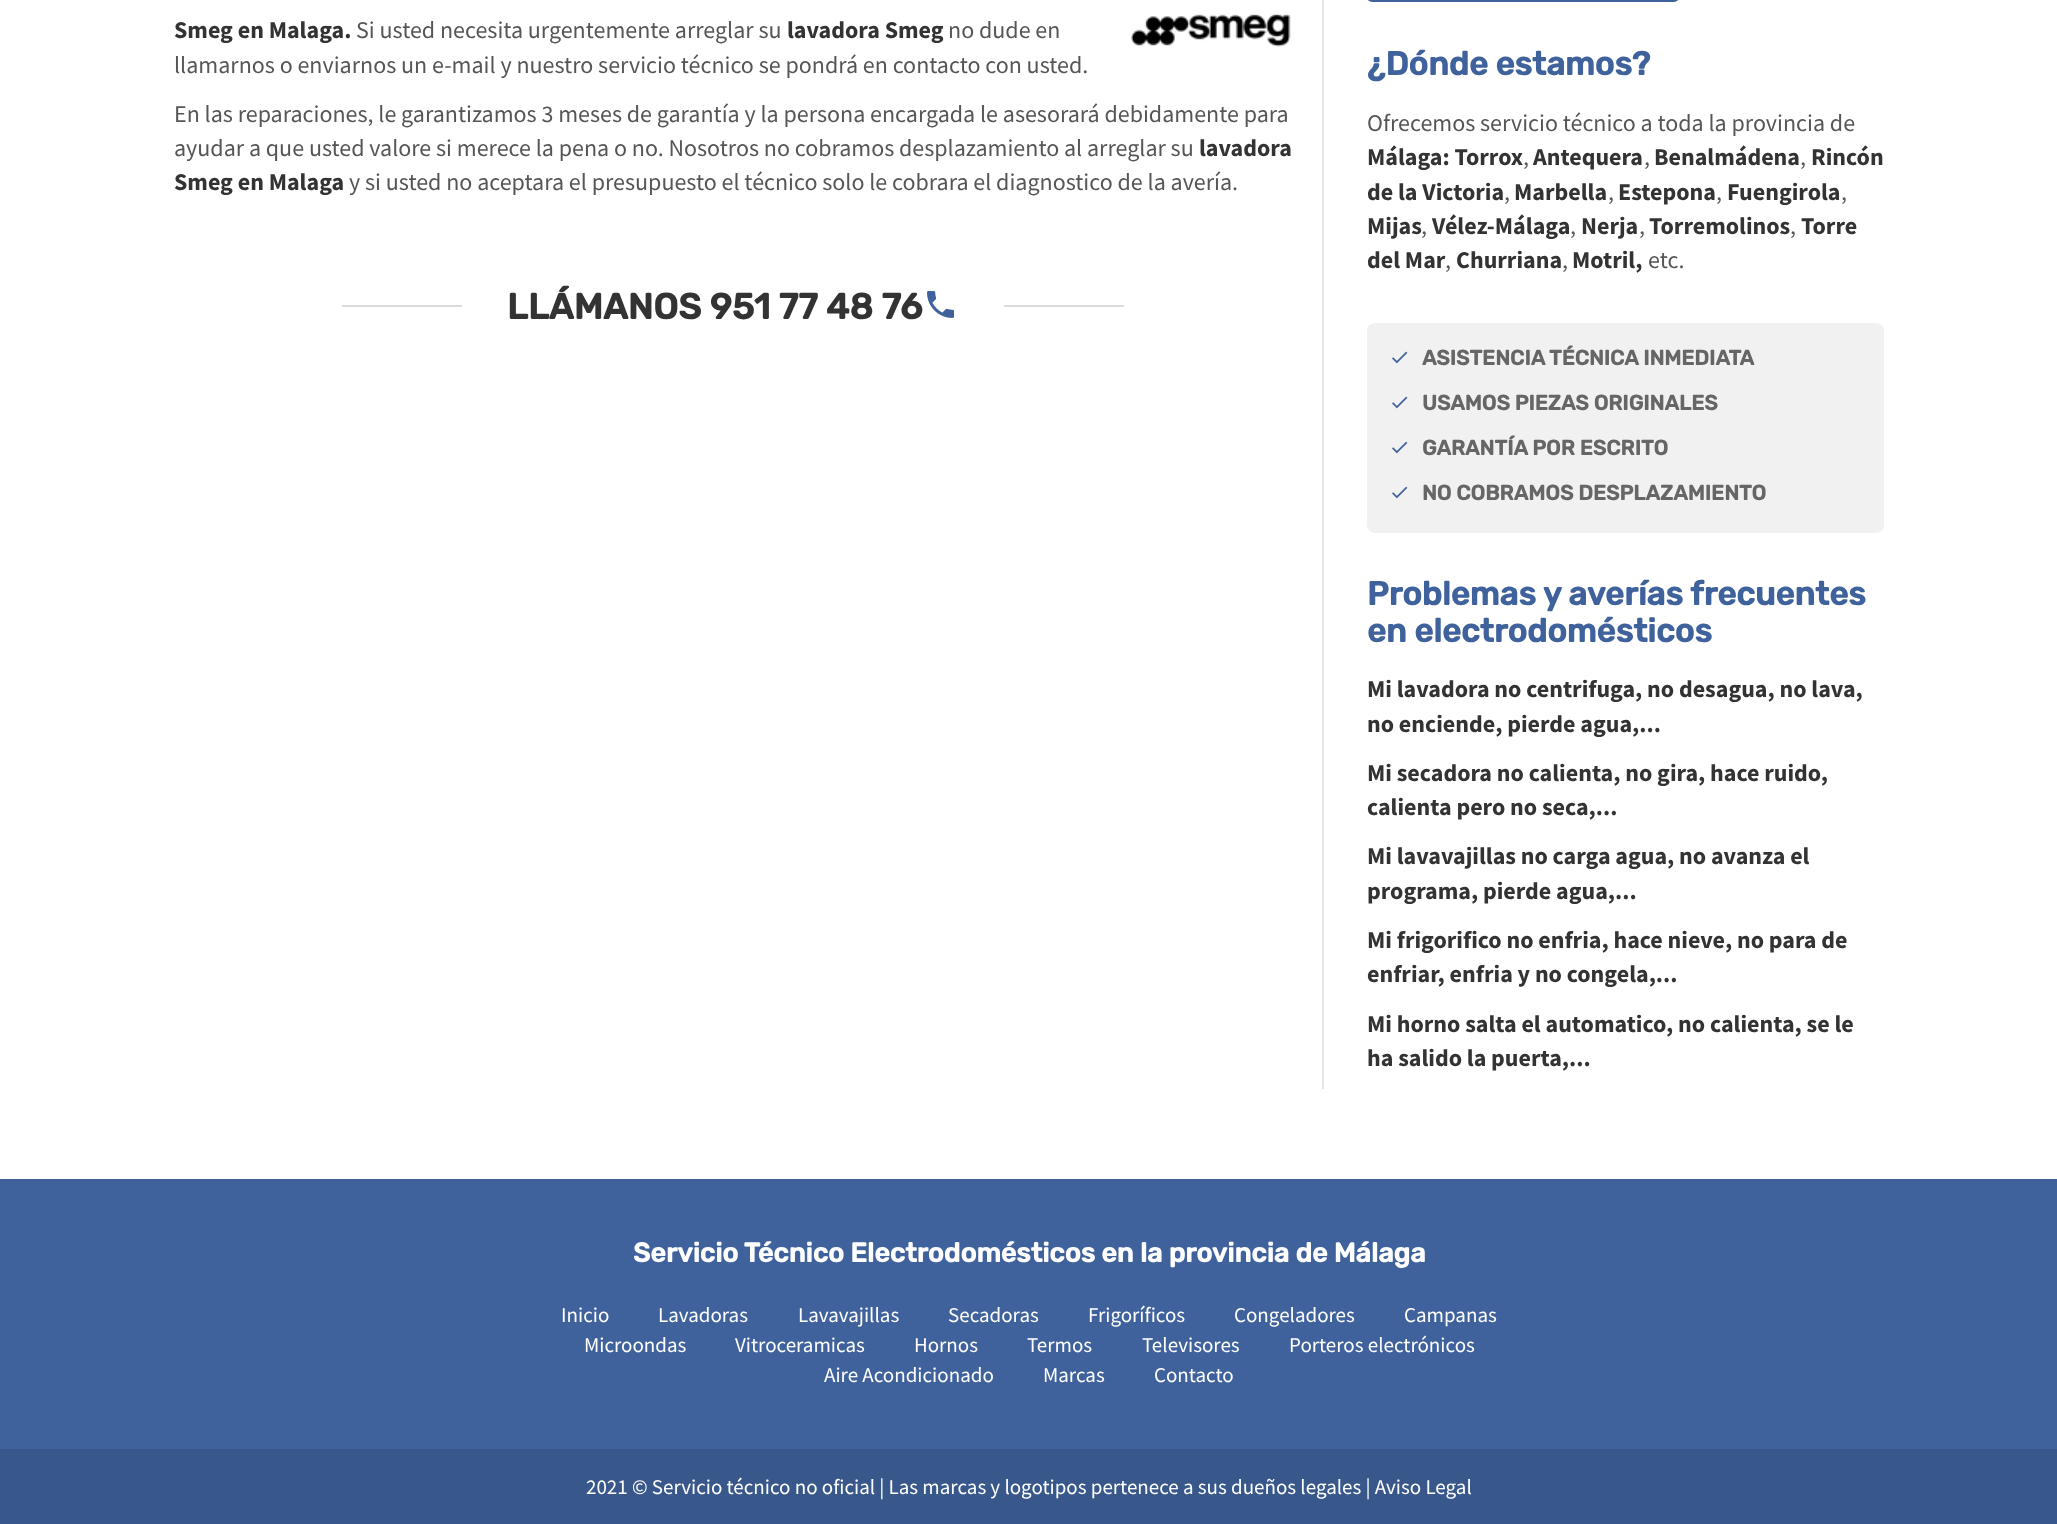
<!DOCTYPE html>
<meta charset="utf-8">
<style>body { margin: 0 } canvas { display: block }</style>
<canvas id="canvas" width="2057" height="1524"></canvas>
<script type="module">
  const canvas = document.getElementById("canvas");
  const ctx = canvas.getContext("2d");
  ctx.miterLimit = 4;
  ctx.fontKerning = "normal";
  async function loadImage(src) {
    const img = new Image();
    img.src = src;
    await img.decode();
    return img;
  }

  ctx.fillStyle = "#ffffff";
  ctx.fillRect(0, 0, 2057, 1524);
  ctx.font = "bold 24px Source Sans Pro";
  ctx.fillStyle = "#333333";
  ctx.fillText("Smeg en Malaga.", 174, 38);
  ctx.font = "24px Source Sans Pro";
  ctx.fillStyle = "#565656";
  ctx.fillText("Si usted necesita urgentemente arreglar su", 356, 38);
  ctx.font = "bold 24px Source Sans Pro";
  ctx.fillStyle = "#333333";
  ctx.fillText("lavadora Smeg", 787, 38);
  ctx.font = "24px Source Sans Pro";
  ctx.fillStyle = "#565656";
  ctx.fillText("no dude en", 948, 38);
  ctx.fillText("llamarnos o enviarnos un e-mail y nuestro servicio técnico se pondrá en contacto con usted.", 174, 73);
  ctx.drawImage(await loadImage("img1.png"), 1131, 13, 160, 34);
  ctx.fillText("En las reparaciones, le garantizamos 3 meses de garantía y la persona encargada le asesorará debidamente para", 174, 122);
  ctx.fillText("ayudar a que usted valore si merece la pena o no. Nosotros no cobramos desplazamiento al arreglar su", 174, 156);
  ctx.font = "bold 24px Source Sans Pro";
  ctx.fillStyle = "#333333";
  ctx.fillText("lavadora", 1199, 156);
  ctx.fillText("Smeg en Malaga", 174, 190);
  ctx.font = "24px Source Sans Pro";
  ctx.fillStyle = "#565656";
  ctx.fillText("y si usted no aceptara el presupuesto el técnico solo le cobrara el diagnostico de la avería.", 349, 190);
  ctx.fillStyle = "#dbdbdb";
  ctx.fillRect(342, 305, 782, 2);
  ctx.fillStyle = "#ffffff";
  ctx.fillRect(462, 305, 542, 2);
  ctx.font = "bold 36px Rubik";
  ctx.fillStyle = "#333333";
  ctx.fillText("LLÁMANOS 951 77 48 76", 507, 319);
  ctx.drawImage(await loadImage("img2.png"), 927, 291, 27, 27);
  ctx.fillStyle = "#e6e6e6";
  ctx.fillRect(1322, 0, 2, 1089);
  ctx.fillStyle = "#3f629c";
  ctx.beginPath();
  ctx.roundRect(1367, -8, 312, 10, 8);
  ctx.fill();
  ctx.font = "bold 33px Rubik";
  ctx.fillText("¿Dónde estamos?", 1367, 75);
  ctx.font = "24px Source Sans Pro";
  ctx.fillStyle = "#565656";
  ctx.fillText("Ofrecemos servicio técnico a toda la provincia de", 1367, 131);
  ctx.font = "bold 24px Source Sans Pro";
  ctx.fillStyle = "#333333";
  ctx.fillText("Málaga: Torrox", 1367, 165);
  ctx.font = "24px Source Sans Pro";
  ctx.fillStyle = "#565656";
  ctx.fillText(",", 1523, 165);
  ctx.font = "bold 24px Source Sans Pro";
  ctx.fillStyle = "#333333";
  ctx.fillText("Antequera", 1533, 165);
  ctx.font = "24px Source Sans Pro";
  ctx.fillStyle = "#565656";
  ctx.fillText(",", 1644, 165);
  ctx.font = "bold 24px Source Sans Pro";
  ctx.fillStyle = "#333333";
  ctx.fillText("Benalmádena", 1654, 165);
  ctx.font = "24px Source Sans Pro";
  ctx.fillStyle = "#565656";
  ctx.fillText(",", 1800, 165);
  ctx.font = "bold 24px Source Sans Pro";
  ctx.fillStyle = "#333333";
  ctx.fillText("Rincón", 1811, 165);
  ctx.fillText("de la Victoria", 1367, 200);
  ctx.font = "24px Source Sans Pro";
  ctx.fillStyle = "#565656";
  ctx.fillText(",", 1504, 200);
  ctx.font = "bold 24px Source Sans Pro";
  ctx.fillStyle = "#333333";
  ctx.fillText("Marbella", 1514, 200);
  ctx.font = "24px Source Sans Pro";
  ctx.fillStyle = "#565656";
  ctx.fillText(",", 1608, 200);
  ctx.font = "bold 24px Source Sans Pro";
  ctx.fillStyle = "#333333";
  ctx.fillText("Estepona", 1618, 200);
  ctx.font = "24px Source Sans Pro";
  ctx.fillStyle = "#565656";
  ctx.fillText(",", 1716, 200);
  ctx.font = "bold 24px Source Sans Pro";
  ctx.fillStyle = "#333333";
  ctx.fillText("Fuengirola", 1727, 200);
  ctx.font = "24px Source Sans Pro";
  ctx.fillStyle = "#565656";
  ctx.fillText(",", 1841, 200);
  ctx.font = "bold 24px Source Sans Pro";
  ctx.fillStyle = "#333333";
  ctx.fillText("Mijas", 1367, 234);
  ctx.font = "24px Source Sans Pro";
  ctx.fillStyle = "#565656";
  ctx.fillText(",", 1421, 234);
  ctx.font = "bold 24px Source Sans Pro";
  ctx.fillStyle = "#333333";
  ctx.fillText("Vélez-Málaga", 1432, 234);
  ctx.font = "24px Source Sans Pro";
  ctx.fillStyle = "#565656";
  ctx.fillText(",", 1570, 234);
  ctx.font = "bold 24px Source Sans Pro";
  ctx.fillStyle = "#333333";
  ctx.fillText("Nerja", 1581, 234);
  ctx.font = "24px Source Sans Pro";
  ctx.fillStyle = "#565656";
  ctx.fillText(",", 1639, 234);
  ctx.font = "bold 24px Source Sans Pro";
  ctx.fillStyle = "#333333";
  ctx.fillText("Torremolinos", 1649, 234);
  ctx.font = "24px Source Sans Pro";
  ctx.fillStyle = "#565656";
  ctx.fillText(",", 1790, 234);
  ctx.font = "bold 24px Source Sans Pro";
  ctx.fillStyle = "#333333";
  ctx.fillText("Torre", 1801, 234);
  ctx.fillText("del Mar", 1367, 268);
  ctx.font = "24px Source Sans Pro";
  ctx.fillStyle = "#565656";
  ctx.fillText(",", 1445, 268);
  ctx.font = "bold 24px Source Sans Pro";
  ctx.fillStyle = "#333333";
  ctx.fillText("Churriana", 1456, 268);
  ctx.font = "24px Source Sans Pro";
  ctx.fillStyle = "#565656";
  ctx.fillText(",", 1562, 268);
  ctx.font = "bold 24px Source Sans Pro";
  ctx.fillStyle = "#333333";
  ctx.fillText("Motril,", 1572, 268);
  ctx.font = "24px Source Sans Pro";
  ctx.fillStyle = "#565656";
  ctx.fillText("etc.", 1648, 268);
  ctx.fillStyle = "#f1f1f1";
  ctx.beginPath();
  ctx.roundRect(1367, 323, 517, 210, 8);
  ctx.fill();
  ctx.drawImage(await loadImage("img3.png"), 1392, 351, 16, 13);
  ctx.font = "bold 21px Rubik";
  ctx.fillStyle = "#666666";
  ctx.fillText("ASISTENCIA TÉCNICA INMEDIATA", 1422, 365);
  ctx.drawImage(await loadImage("img3.png"), 1392, 396, 16, 13);
  ctx.fillText("USAMOS PIEZAS ORIGINALES", 1422, 410);
  ctx.drawImage(await loadImage("img3.png"), 1392, 441, 16, 13);
  ctx.fillText("GARANTÍA POR ESCRITO", 1422, 455);
  ctx.drawImage(await loadImage("img3.png"), 1392, 486, 16, 13);
  ctx.fillText("NO COBRAMOS DESPLAZAMIENTO", 1422, 500);
  ctx.font = "bold 33px Rubik";
  ctx.fillStyle = "#3f629c";
  ctx.fillText("Problemas y averías frecuentes", 1367, 605);
  ctx.fillText("en electrodomésticos", 1367, 642);
  ctx.font = "bold 24px Source Sans Pro";
  ctx.fillStyle = "#333333";
  ctx.fillText("Mi lavadora no centrifuga, no desagua, no lava,", 1367, 697);
  ctx.fillText("no enciende, pierde agua,...", 1367, 732);
  ctx.fillText("Mi secadora no calienta, no gira, hace ruido,", 1367, 781);
  ctx.fillText("calienta pero no seca,...", 1367, 815);
  ctx.fillText("Mi lavavajillas no carga agua, no avanza el", 1367, 864);
  ctx.fillText("programa, pierde agua,...", 1367, 899);
  ctx.fillText("Mi frigorifico no enfria, hace nieve, no para de", 1367, 948);
  ctx.fillText("enfriar, enfria y no congela,...", 1367, 982);
  ctx.fillText("Mi horno salta el automatico, no calienta, se le", 1367, 1032);
  ctx.fillText("ha salido la puerta,...", 1367, 1066);
  ctx.fillStyle = "#3f629c";
  ctx.fillRect(0, 1179, 2057, 270);
  ctx.font = "bold 27px Rubik";
  ctx.fillStyle = "#ffffff";
  ctx.fillText("Servicio Técnico Electrodomésticos en la provincia de Málaga", 633, 1262);
  ctx.font = "21px Source Sans Pro";
  ctx.fillText("Inicio", 561, 1322);
  ctx.fillText("Lavadoras", 658, 1322);
  ctx.fillText("Lavavajillas", 798, 1322);
  ctx.fillText("Secadoras", 948, 1322);
  ctx.fillText("Frigoríficos", 1088, 1322);
  ctx.fillText("Congeladores", 1234, 1322);
  ctx.fillText("Campanas", 1404, 1322);
  ctx.fillText("Microondas", 584, 1352);
  ctx.fillText("Vitroceramicas", 735, 1352);
  ctx.fillText("Hornos", 914, 1352);
  ctx.fillText("Termos", 1027, 1352);
  ctx.fillText("Televisores", 1142, 1352);
  ctx.fillText("Porteros electrónicos", 1289, 1352);
  ctx.fillText("Aire Acondicionado", 824, 1382);
  ctx.fillText("Marcas", 1043, 1382);
  ctx.fillText("Contacto", 1154, 1382);
  ctx.fillStyle = "#38578a";
  ctx.fillRect(0, 1449, 2057, 75);
  ctx.fillStyle = "#ffffff";
  ctx.fillText("2021 © Servicio técnico no oficial | Las marcas y logotipos pertenece a sus dueños legales | Aviso Legal", 586, 1494);
</script>
